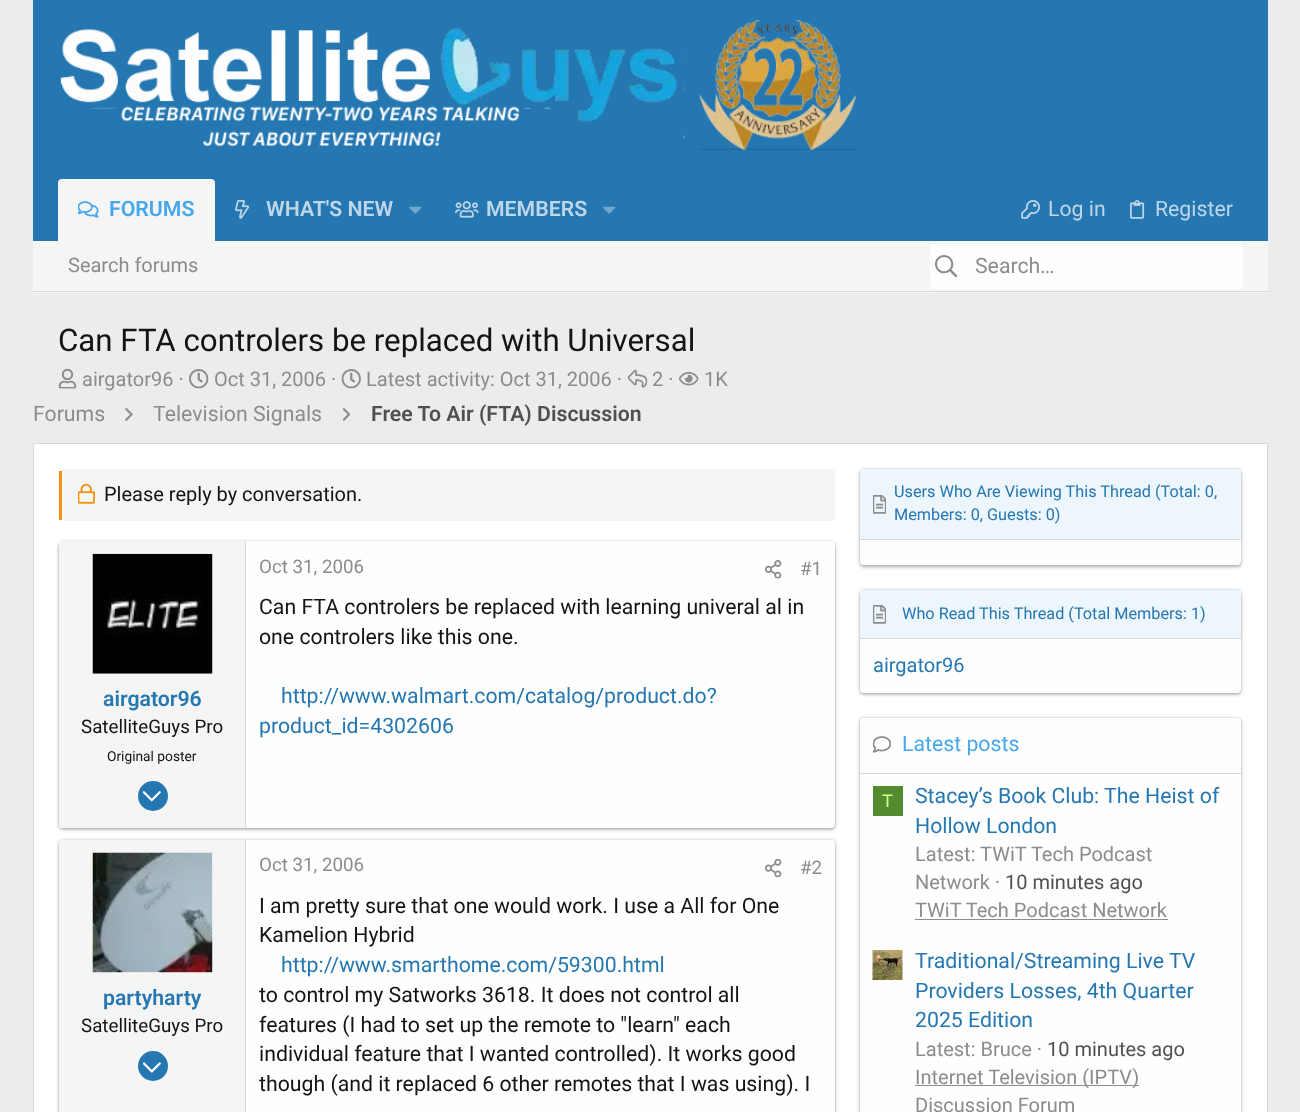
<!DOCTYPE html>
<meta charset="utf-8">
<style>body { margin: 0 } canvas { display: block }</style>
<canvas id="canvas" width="1300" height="1112"></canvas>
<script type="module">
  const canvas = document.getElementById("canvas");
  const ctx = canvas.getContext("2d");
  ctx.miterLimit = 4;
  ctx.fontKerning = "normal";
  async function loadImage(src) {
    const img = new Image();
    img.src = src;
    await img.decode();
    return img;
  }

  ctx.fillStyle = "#ececec";
  ctx.fillRect(0, 0, 1300, 1112);
  ctx.fillStyle = "#2577b1";
  ctx.fillRect(33, 0, 1235, 241);
  ctx.drawImage(await loadImage("img1.png"), 60, 20, 796, 130);
  ctx.fillStyle = "#f5f5f5";
  ctx.beginPath();
  ctx.roundRect(58, 179, 157, 62, [4, 4, 0, 0]);
  ctx.fill();
  ctx.drawImage(await loadImage("img2.png"), 78, 201, 21, 17);
  ctx.font = "600 21.25px Roboto";
  ctx.fillStyle = "#47a7eb";
  ctx.fillText("FORUMS", 109, 216);
  ctx.drawImage(await loadImage("img3.png"), 235, 200, 14, 19);
  ctx.fillStyle = "#bed6e8";
  ctx.fillText("WHAT'S NEW", 266, 216);
  ctx.drawImage(await loadImage("img4.png"), 409, 206, 13, 8);
  ctx.drawImage(await loadImage("img5.png"), 455, 201, 24, 17);
  ctx.fillText("MEMBERS", 486, 216);
  ctx.drawImage(await loadImage("img6.png"), 603, 206, 13, 8);
  ctx.drawImage(await loadImage("img7.png"), 1021, 200, 19, 19);
  ctx.font = "21.25px Roboto";
  ctx.fillText("Log in", 1048, 216);
  ctx.drawImage(await loadImage("img8.png"), 1130, 200, 15, 19);
  ctx.fillText("Register", 1155, 216);
  ctx.fillStyle = "#f5f5f5";
  ctx.fillRect(33, 241, 1235, 52);
  ctx.fillStyle = "#d8d8d8";
  ctx.fillRect(33, 291, 1235, 1);
  ctx.font = "20px Roboto";
  ctx.fillStyle = "#8c8c8c";
  ctx.fillText("Search forums", 68, 272);
  ctx.fillStyle = "#fefefe";
  ctx.beginPath();
  ctx.roundRect(930, 244, 313, 45, 4);
  ctx.fill();
  ctx.drawImage(await loadImage("img9.png"), 935, 255, 23, 23);
  ctx.font = "21.25px Roboto";
  ctx.fillStyle = "#8c8c8c";
  ctx.fillText("Search…", 975, 273);
  ctx.font = "31.25px Roboto";
  ctx.fillStyle = "#141414";
  ctx.fillText("Can FTA controlers be replaced with Universal", 58, 351);
  ctx.drawImage(await loadImage("img10.png"), 58, 369, 19, 20);
  ctx.font = "20px Roboto";
  ctx.fillStyle = "#8c8c8c";
  ctx.fillText("airgator96 ·", 82, 386);
  ctx.drawImage(await loadImage("img11.png"), 189, 369, 20, 20);
  ctx.fillText("Oct 31, 2006 ·", 214, 386);
  ctx.drawImage(await loadImage("img12.png"), 341, 369, 20, 20);
  ctx.fillText("Latest activity: Oct 31, 2006 ·", 366, 386);
  ctx.drawImage(await loadImage("img13.png"), 627, 369, 21, 19);
  ctx.fillText("2 ·", 652, 386);
  ctx.drawImage(await loadImage("img14.png"), 679, 372, 20, 14);
  ctx.fillText("1K", 704, 386);
  ctx.font = "21.25px Roboto";
  ctx.fillText("Forums", 33, 421);
  ctx.drawImage(await loadImage("img15.png"), 125, 407, 8, 14);
  ctx.fillText("Television Signals", 153, 421);
  ctx.drawImage(await loadImage("img16.png"), 343, 407, 7, 14);
  ctx.font = "600 21.25px Roboto";
  ctx.fillStyle = "#505050";
  ctx.fillText("Free To Air (FTA) Discussion", 371, 421);
  ctx.fillStyle = "#ffffff";
  ctx.beginPath();
  ctx.rect(33.5, 443.5, 1234, 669);
  ctx.fill();
  ctx.strokeStyle = "#d8d8d8";
  ctx.stroke();
  ctx.fillStyle = "#f5f5f5";
  ctx.beginPath();
  ctx.moveTo(62, 469);
  ctx.lineTo(831, 469);
  ctx.bezierCurveTo(833, 469, 835, 470, 835, 472);
  ctx.lineTo(835, 518);
  ctx.bezierCurveTo(835, 520, 833, 521, 831, 521);
  ctx.lineTo(62, 521);
  ctx.bezierCurveTo(62, 521, 61, 520, 61, 518);
  ctx.lineTo(61, 472);
  ctx.bezierCurveTo(61, 470, 62, 469, 62, 469);
  ctx.closePath();
  ctx.fill();
  ctx.fillStyle = "#f2930d";
  ctx.fillRect(59, 471, 3, 49);
  ctx.drawImage(await loadImage("img17.png"), 78, 484, 17, 20);
  ctx.font = "20px Roboto";
  ctx.fillStyle = "#141414";
  ctx.fillText("Please reply by conversation.", 104, 501);
  ctx.fillStyle = "rgba(0, 0, 0, 0.2)";
  ctx.filter = "blur(2px)";
  ctx.beginPath();
  ctx.roundRect(59, 543, 776, 286, 4);
  ctx.fill();
  ctx.filter = "none";
  ctx.fillStyle = "rgba(0, 0, 0, 0.12)";
  ctx.filter = "blur(1px)";
  ctx.beginPath();
  ctx.roundRect(59, 544, 776, 286, 4);
  ctx.fill();
  ctx.filter = "none";
  ctx.fillStyle = "rgba(0, 0, 0, 0.14)";
  ctx.filter = "blur(1px)";
  ctx.beginPath();
  ctx.roundRect(59, 541, 776, 287, 4);
  ctx.fill();
  ctx.filter = "none";
  ctx.fillStyle = "#fefefe";
  ctx.beginPath();
  ctx.roundRect(59, 541, 776, 287, 4);
  ctx.fill();
  ctx.fillStyle = "#f5f5f5";
  ctx.beginPath();
  ctx.roundRect(59, 541, 187, 287, [2.5, 0, 0, 2.5]);
  ctx.fill();
  ctx.fillStyle = "#d8d8d8";
  ctx.fillRect(245, 541, 1, 287);
  ctx.fillStyle = "#fefefe";
  ctx.fillRect(93, 554, 120, 120);
  ctx.drawImage(await loadImage("img18.png"), 92, 553, 121, 121);
  ctx.font = "600 21.25px Roboto";
  ctx.fillStyle = "#2577b1";
  ctx.fillText("airgator96", 103, 706);
  ctx.font = "18.75px Roboto";
  ctx.fillStyle = "#141414";
  ctx.fillText("SatelliteGuys Pro", 81, 733);
  ctx.font = "13.75px Roboto";
  ctx.fillText("Original poster", 107, 761);
  ctx.fillStyle = "#2577b1";
  ctx.beginPath();
  ctx.arc(153, 796, 15, 0, Math.PI * 2);
  ctx.fill();
  ctx.drawImage(await loadImage("img19.png"), 143, 791, 18, 11);
  ctx.font = "18.75px Roboto";
  ctx.fillStyle = "#8c8c8c";
  ctx.fillText("Oct 31, 2006", 259, 573);
  ctx.drawImage(await loadImage("img20.png"), 765, 560, 17, 19);
  ctx.fillText("#1", 800, 575);
  ctx.font = "21.25px Roboto";
  ctx.fillStyle = "#141414";
  ctx.fillText("Can FTA controlers be replaced with learning univeral al in", 259, 614);
  ctx.fillText("one controlers like this one.", 259, 644);
  ctx.fillStyle = "#2577b1";
  ctx.fillText("http://www.walmart.com/catalog/product.do?", 281, 703);
  ctx.fillText("product_id=4302606", 259, 733);
  ctx.fillStyle = "rgba(0, 0, 0, 0.2)";
  ctx.filter = "blur(2px)";
  ctx.beginPath();
  ctx.roundRect(59, 841, 776, 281, 4);
  ctx.fill();
  ctx.filter = "none";
  ctx.fillStyle = "rgba(0, 0, 0, 0.12)";
  ctx.filter = "blur(1px)";
  ctx.beginPath();
  ctx.roundRect(59, 843, 776, 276, 4);
  ctx.fill();
  ctx.filter = "none";
  ctx.fillStyle = "rgba(0, 0, 0, 0.14)";
  ctx.filter = "blur(1px)";
  ctx.beginPath();
  ctx.roundRect(59, 840, 776, 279, 4);
  ctx.fill();
  ctx.filter = "none";
  ctx.fillStyle = "#fefefe";
  ctx.beginPath();
  ctx.roundRect(59, 840, 776, 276, 4);
  ctx.fill();
  ctx.fillStyle = "#f5f5f5";
  ctx.beginPath();
  ctx.moveTo(61.5, 840);
  ctx.lineTo(246, 840);
  ctx.lineTo(246, 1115);
  ctx.lineTo(61.5, 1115);
  ctx.bezierCurveTo(60, 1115, 59, 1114, 59, 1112.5);
  ctx.lineTo(59, 842.5);
  ctx.bezierCurveTo(59, 841, 60, 840, 61.5, 840);
  ctx.closePath();
  ctx.fill();
  ctx.fillStyle = "#d8d8d8";
  ctx.fillRect(245, 840, 1, 272);
  ctx.fillStyle = "#fefefe";
  ctx.fillRect(93, 853, 120, 120);
  ctx.drawImage(await loadImage("img21.png"), 92, 852, 121, 121);
  ctx.font = "600 21.25px Roboto";
  ctx.fillStyle = "#2577b1";
  ctx.fillText("partyharty", 103, 1005);
  ctx.font = "18.75px Roboto";
  ctx.fillStyle = "#141414";
  ctx.fillText("SatelliteGuys Pro", 81, 1032);
  ctx.fillStyle = "#2577b1";
  ctx.beginPath();
  ctx.arc(153, 1066, 15, 0, Math.PI * 2);
  ctx.fill();
  ctx.drawImage(await loadImage("img22.png"), 143, 1062, 18, 11);
  ctx.fillStyle = "#8c8c8c";
  ctx.fillText("Oct 31, 2006", 259, 871);
  ctx.drawImage(await loadImage("img23.png"), 765, 859, 17, 19);
  ctx.fillText("#2", 800, 874);
  ctx.font = "21.25px Roboto";
  ctx.fillStyle = "#141414";
  ctx.fillText("I am pretty sure that one would work. I use a All for One", 259, 913);
  ctx.fillText("Kamelion Hybrid", 259, 942);
  ctx.fillStyle = "#2577b1";
  ctx.fillText("http://www.smarthome.com/59300.html", 281, 972);
  ctx.fillStyle = "#141414";
  ctx.fillText("to control my Satworks 3618. It does not control all", 259, 1002);
  ctx.fillText("features (I had to set up the remote to \"learn\" each", 259, 1032);
  ctx.fillText("individual feature that I wanted controlled). It works good", 259, 1061);
  ctx.fillText("though (and it replaced 6 other remotes that I was using). I", 259, 1091);
  ctx.fillStyle = "rgba(0, 0, 0, 0.2)";
  ctx.filter = "blur(2px)";
  ctx.beginPath();
  ctx.roundRect(860, 470, 381, 96, 4);
  ctx.fill();
  ctx.filter = "none";
  ctx.fillStyle = "rgba(0, 0, 0, 0.12)";
  ctx.filter = "blur(1px)";
  ctx.beginPath();
  ctx.roundRect(860, 471, 381, 97, 4);
  ctx.fill();
  ctx.filter = "none";
  ctx.fillStyle = "rgba(0, 0, 0, 0.14)";
  ctx.filter = "blur(1px)";
  ctx.beginPath();
  ctx.roundRect(860, 469, 381, 96, 4);
  ctx.fill();
  ctx.filter = "none";
  ctx.fillStyle = "#fefefe";
  ctx.beginPath();
  ctx.roundRect(860, 469, 381, 96, 4);
  ctx.fill();
  ctx.fillStyle = "#edf6fd";
  ctx.beginPath();
  ctx.roundRect(860, 469, 381, 71, [2.5, 2.5, 0, 0]);
  ctx.fill();
  ctx.fillStyle = "#d8d8d8";
  ctx.fillRect(860, 539, 381, 1);
  ctx.font = "16.25px Roboto";
  ctx.fillStyle = "#2577b1";
  ctx.fillText("Users Who Are Viewing This Thread (Total: 0,", 894, 497);
  ctx.drawImage(await loadImage("img24.png"), 873, 495, 13, 19);
  ctx.fillText("Members: 0, Guests: 0)", 894, 520);
  ctx.fillStyle = "rgba(0, 0, 0, 0.2)";
  ctx.filter = "blur(2px)";
  ctx.beginPath();
  ctx.roundRect(860, 591, 381, 103, 4);
  ctx.fill();
  ctx.filter = "none";
  ctx.fillStyle = "rgba(0, 0, 0, 0.12)";
  ctx.filter = "blur(1px)";
  ctx.beginPath();
  ctx.roundRect(860, 593, 381, 102, 4);
  ctx.fill();
  ctx.filter = "none";
  ctx.fillStyle = "rgba(0, 0, 0, 0.14)";
  ctx.filter = "blur(1px)";
  ctx.beginPath();
  ctx.roundRect(860, 590, 381, 103, 4);
  ctx.fill();
  ctx.filter = "none";
  ctx.fillStyle = "#fefefe";
  ctx.beginPath();
  ctx.roundRect(860, 590, 381, 103, 4);
  ctx.fill();
  ctx.fillStyle = "#edf6fd";
  ctx.beginPath();
  ctx.roundRect(860, 590, 381, 49, [2.5, 2.5, 0, 0]);
  ctx.fill();
  ctx.fillStyle = "#d8d8d8";
  ctx.fillRect(860, 638, 381, 1);
  ctx.drawImage(await loadImage("img24.png"), 873, 605, 13, 19);
  ctx.fillStyle = "#2577b1";
  ctx.fillText("Who Read This Thread (Total Members: 1)", 902, 619);
  ctx.font = "20px Roboto";
  ctx.fillText("airgator96", 873, 672);
  ctx.fillStyle = "rgba(0, 0, 0, 0.2)";
  ctx.filter = "blur(2px)";
  ctx.beginPath();
  ctx.roundRect(860, 719, 381, 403, 4);
  ctx.fill();
  ctx.filter = "none";
  ctx.fillStyle = "rgba(0, 0, 0, 0.12)";
  ctx.filter = "blur(1px)";
  ctx.beginPath();
  ctx.roundRect(860, 720, 381, 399, 4);
  ctx.fill();
  ctx.filter = "none";
  ctx.fillStyle = "rgba(0, 0, 0, 0.14)";
  ctx.filter = "blur(1px)";
  ctx.beginPath();
  ctx.roundRect(860, 718, 381, 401, 4);
  ctx.fill();
  ctx.filter = "none";
  ctx.fillStyle = "#fefefe";
  ctx.beginPath();
  ctx.roundRect(860, 718, 381, 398, 4);
  ctx.fill();
  ctx.fillStyle = "#d8d8d8";
  ctx.fillRect(860, 773, 381, 1);
  ctx.drawImage(await loadImage("img25.png"), 873, 736, 18, 17);
  ctx.font = "21.25px Roboto";
  ctx.fillStyle = "#47a7eb";
  ctx.fillText("Latest posts", 902, 751);
  ctx.fillStyle = "#558b2f";
  ctx.fillRect(873, 786, 30, 30);
  ctx.font = "18px Liberation Sans";
  ctx.fillStyle = "#ccff90";
  ctx.fillText("T", 882, 807);
  ctx.font = "21.25px Roboto";
  ctx.fillStyle = "#2577b1";
  ctx.fillText("Stacey’s Book Club: The Heist of", 915, 803);
  ctx.fillText("Hollow London", 915, 833);
  ctx.font = "20px Roboto";
  ctx.fillStyle = "#8c8c8c";
  ctx.fillText("Latest: TWiT Tech Podcast", 915, 861);
  ctx.fillText("Network ·", 915, 889);
  ctx.fillStyle = "#505050";
  ctx.fillText("10 minutes ago", 1005, 889);
  ctx.fillStyle = "#8c8c8c";
  ctx.fillText("TWiT Tech Podcast Network", 915, 917);
  ctx.fillRect(915, 919, 253, 1);
  ctx.drawImage(await loadImage("img26.png"), 872, 950, 31, 30);
  ctx.font = "21.25px Roboto";
  ctx.fillStyle = "#2577b1";
  ctx.fillText("Traditional/Streaming Live TV", 915, 968);
  ctx.fillText("Providers Losses, 4th Quarter", 915, 998);
  ctx.fillText("2025 Edition", 915, 1027);
  ctx.font = "20px Roboto";
  ctx.fillStyle = "#8c8c8c";
  ctx.fillText("Latest: Bruce ·", 915, 1056);
  ctx.fillStyle = "#505050";
  ctx.fillText("10 minutes ago", 1047, 1056);
  ctx.fillStyle = "#8c8c8c";
  ctx.fillRect(915, 1085, 224, 1);
  ctx.fillText("Internet Television (IPTV)", 915, 1084);
  ctx.fillText("Discussion Forum", 915, 1112);
</script>
